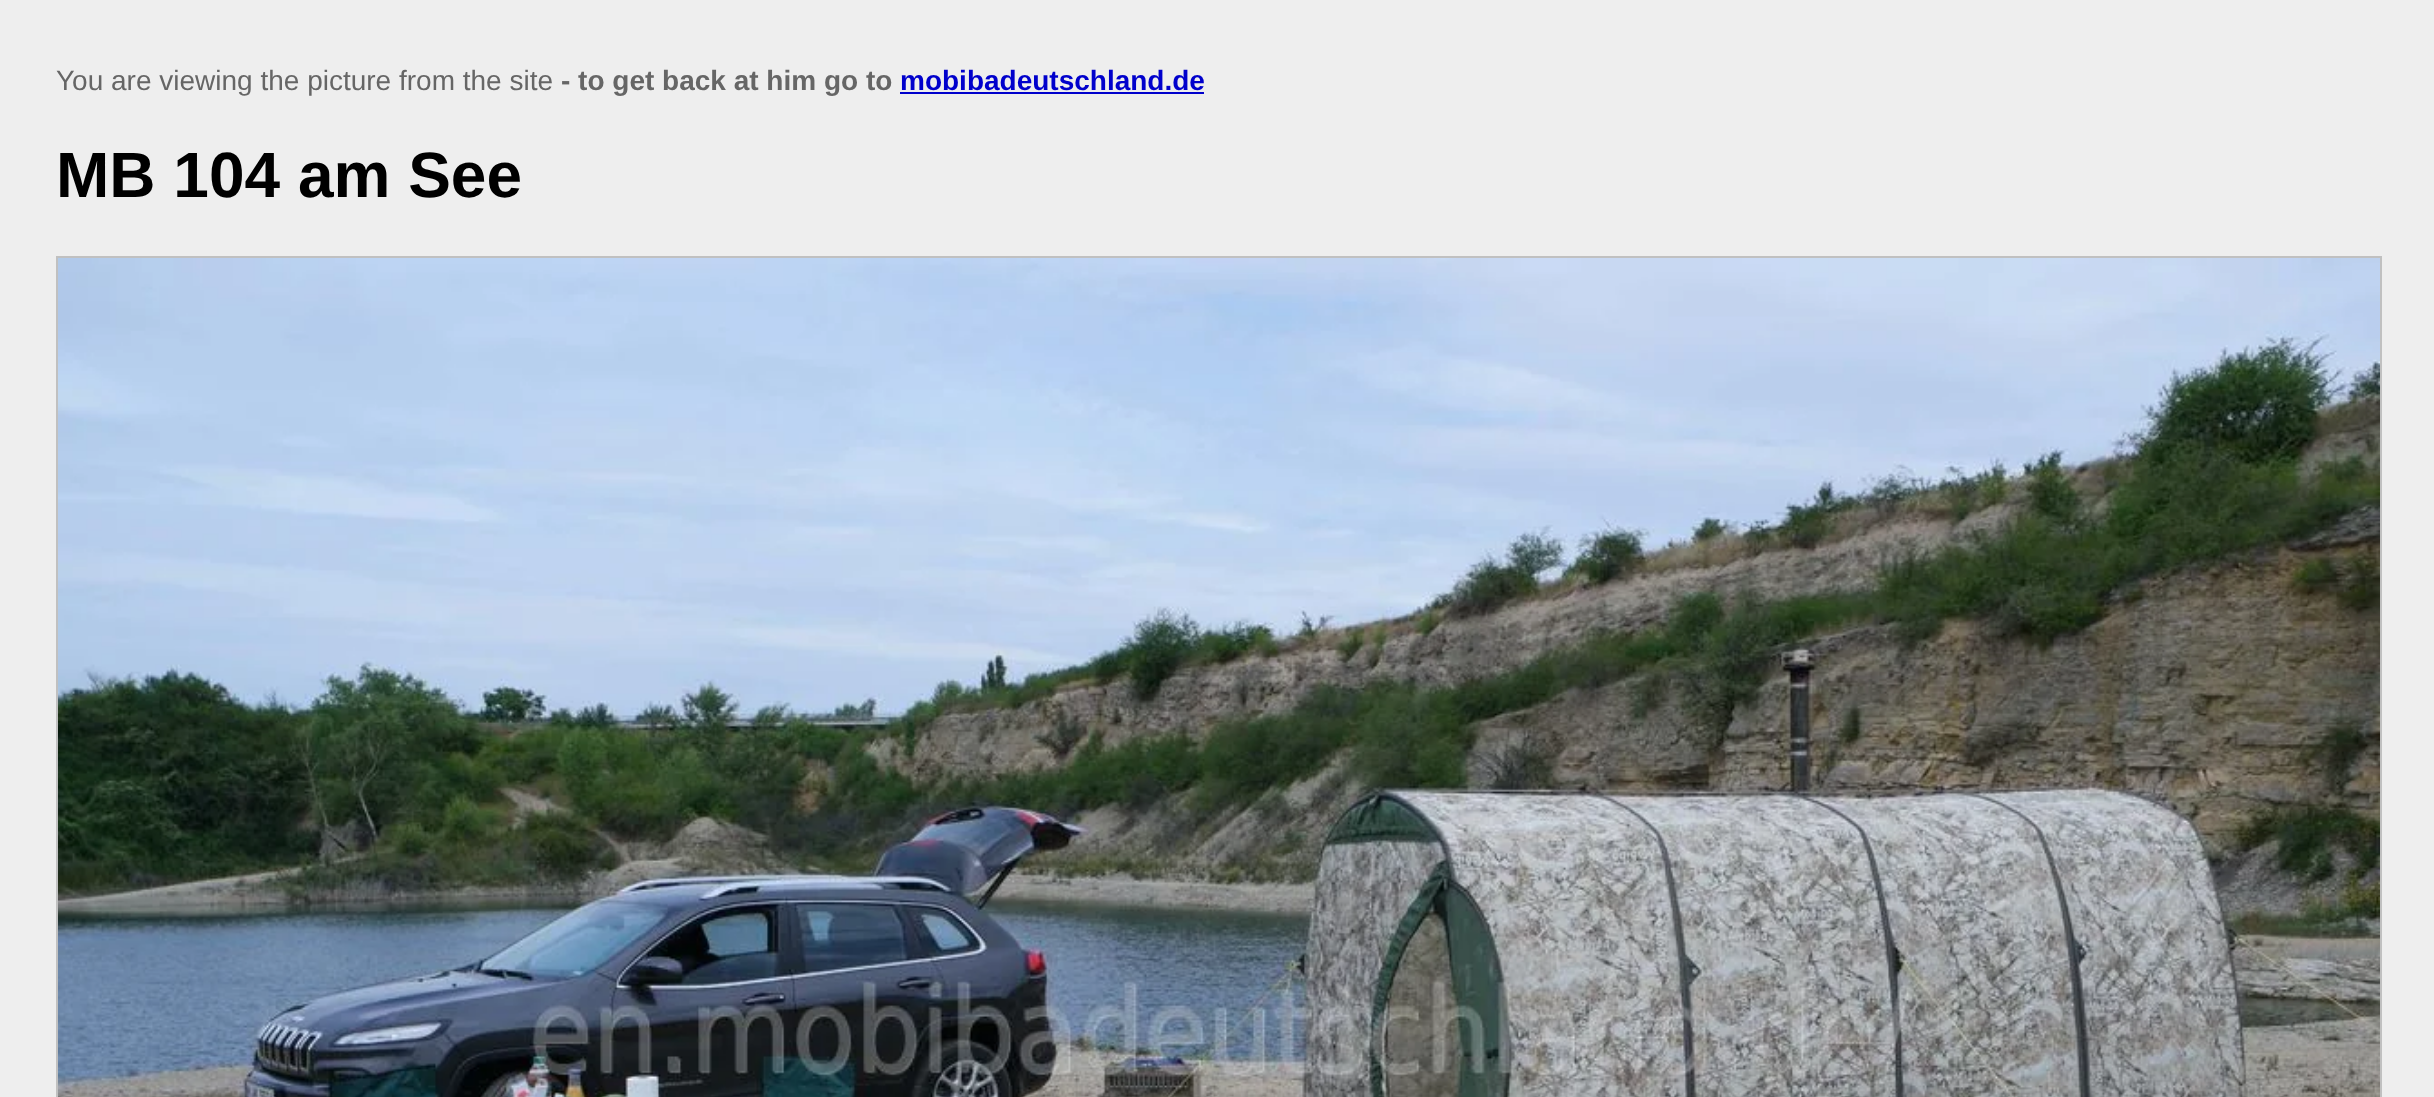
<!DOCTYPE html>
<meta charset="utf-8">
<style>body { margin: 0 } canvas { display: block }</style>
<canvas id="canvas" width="2434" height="1097"></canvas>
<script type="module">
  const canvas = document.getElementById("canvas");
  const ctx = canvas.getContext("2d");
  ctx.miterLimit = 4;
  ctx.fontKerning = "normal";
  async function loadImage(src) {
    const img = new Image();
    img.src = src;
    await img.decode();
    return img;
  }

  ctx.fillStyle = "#eeeeee";
  ctx.fillRect(0, 0, 2434, 1097);
  ctx.font = "28px Liberation Sans";
  ctx.fillStyle = "#666666";
  ctx.fillText("You are viewing the picture from the site", 56, 90);
  ctx.font = "bold 28px Liberation Sans";
  ctx.fillText("- to get back at him go to", 561, 90);
  ctx.fillStyle = "#0000cc";
  ctx.fillText("mobibadeutschland.de", 900, 90);
  ctx.fillRect(900, 92, 304, 2);
  ctx.font = "bold 64px Liberation Sans";
  ctx.fillStyle = "#000000";
  ctx.fillText("MB 104 am See", 56, 197);
  ctx.strokeStyle = "#c0c0c0";
  ctx.lineWidth = 2;
  ctx.strokeRect(57, 257, 2324, 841);
  ctx.drawImage(await loadImage("img1.png"), 58, 258, 2322, 839);
</script>
